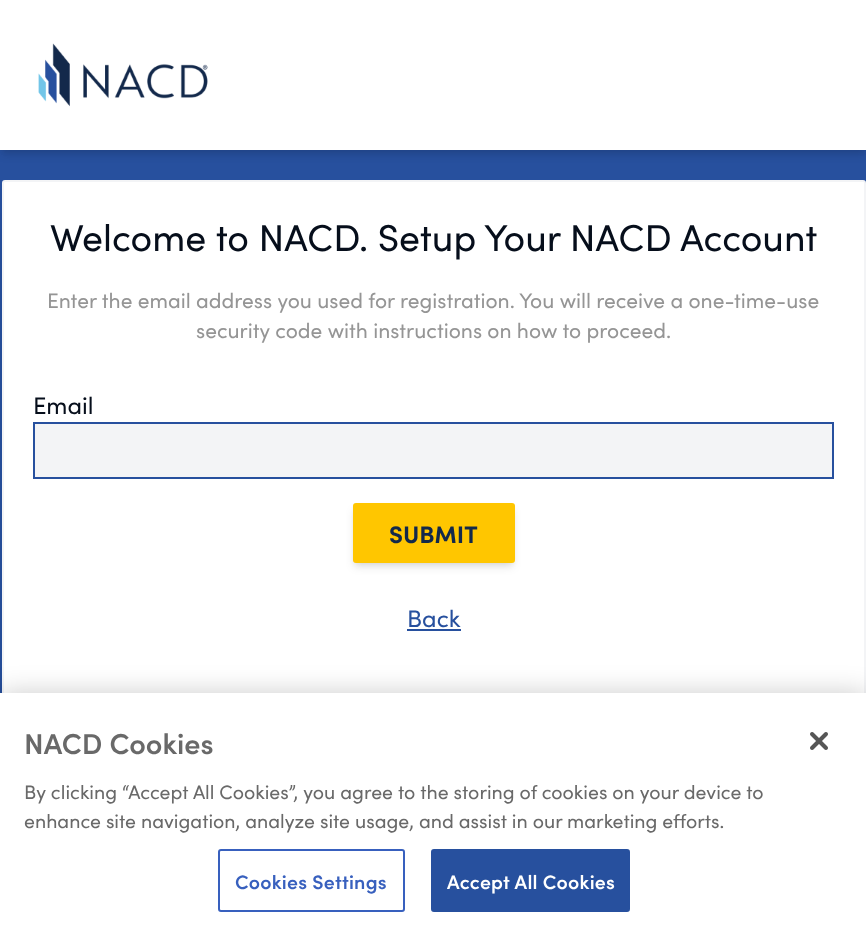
<!DOCTYPE html>
<meta charset="utf-8">
<style>body { margin: 0 } canvas { display: block }</style>
<canvas id="canvas" width="866" height="936"></canvas>
<script type="module">
  const canvas = document.getElementById("canvas");
  const ctx = canvas.getContext("2d");
  ctx.miterLimit = 4;
  ctx.fontKerning = "normal";
  async function loadImage(src) {
    const img = new Image();
    img.src = src;
    await img.decode();
    return img;
  }

  ctx.fillStyle = "#27509e";
  ctx.fillRect(0, 0, 866, 936);
  ctx.fillStyle = "rgba(0, 0, 0, 0.1)";
  ctx.filter = "blur(3px)";
  ctx.beginPath();
  ctx.rect(3, 6, 861, 144);
  ctx.fill();
  ctx.filter = "none";
  ctx.filter = "blur(4.5px)";
  ctx.beginPath();
  ctx.rect(2, 8, 864, 147);
  ctx.fill();
  ctx.filter = "none";
  ctx.fillStyle = "#ffffff";
  ctx.fillRect(0, 0, 866, 150);
  ctx.drawImage(await loadImage("img1.png"), 38, 43, 170, 64);
  ctx.fillStyle = "rgba(0, 0, 0, 0.1)";
  ctx.filter = "blur(19px)";
  ctx.beginPath();
  ctx.rect(9, 218, 849, 615);
  ctx.fill();
  ctx.filter = "none";
  ctx.fillStyle = "#ffffff";
  ctx.beginPath();
  ctx.roundRect(3, 181, 862, 628, 2);
  ctx.fill();
  ctx.strokeStyle = "#f3f4f6";
  ctx.lineWidth = 2;
  ctx.stroke();
  ctx.font = "37.5px Sofia";
  ctx.fillStyle = "#060e1b";
  ctx.fillText("Welcome to NACD. Setup Your NACD Account", 50, 251);
  ctx.font = "21px Sofia";
  ctx.fillStyle = "#959595";
  ctx.fillText("Enter the email address you used for registration. You will receive a one-time-use", 47, 308);
  ctx.fillText("security code with instructions on how to proceed.", 196, 338);
  ctx.font = "24px Sofia";
  ctx.fillStyle = "#060e1b";
  ctx.fillText("Email", 33, 414);
  ctx.fillStyle = "#f3f4f6";
  ctx.beginPath();
  ctx.rect(34, 423, 799, 55);
  ctx.fill();
  ctx.strokeStyle = "#27509e";
  ctx.stroke();
  ctx.fillStyle = "rgba(0, 0, 0, 0.1)";
  ctx.filter = "blur(3px)";
  ctx.beginPath();
  ctx.rect(356, 509, 156, 54);
  ctx.fill();
  ctx.filter = "none";
  ctx.filter = "blur(4.5px)";
  ctx.beginPath();
  ctx.roundRect(354, 510, 159, 57, 1.5);
  ctx.fill();
  ctx.filter = "none";
  ctx.fillStyle = "#ffc600";
  ctx.beginPath();
  ctx.roundRect(353, 503, 162, 60, 3);
  ctx.fill();
  ctx.font = "bold 24px Sofia";
  ctx.fillStyle = "#13294b";
  ctx.fillText("SUBMIT", 389, 543);
  ctx.font = "24px Sofia";
  ctx.fillStyle = "#27509e";
  ctx.fillText("Back", 407, 627);
  ctx.fillRect(407, 629, 54, 2);
  ctx.fillStyle = "rgba(0, 0, 0, 0.2)";
  ctx.filter = "blur(13.5px)";
  ctx.beginPath();
  ctx.rect(0, 693, 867, 243);
  ctx.fill();
  ctx.filter = "none";
  ctx.fillStyle = "#ffffff";
  ctx.fillRect(0, 693, 866, 243);
  ctx.font = "600 28.75px Sofia";
  ctx.fillStyle = "#696969";
  ctx.fillText("NACD Cookies", 24, 754);
  ctx.font = "19.5px Sofia";
  ctx.fillText("By clicking “Accept All Cookies”, you agree to the storing of cookies on your device to", 24, 799);
  ctx.fillText("enhance site navigation, analyze site usage, and assist in our marketing efforts.", 24, 828);
  ctx.beginPath();
  ctx.roundRect(219, 850, 185, 61, 2);
  ctx.strokeStyle = "#3860be";
  ctx.stroke();
  ctx.letterSpacing = "0.25px";
  ctx.font = "600 19.5px Sofia";
  ctx.fillStyle = "#3860be";
  ctx.fillText("Cookies Settings", 235, 889);
  ctx.fillStyle = "#27509e";
  ctx.beginPath();
  ctx.roundRect(432, 850, 197, 61, 2);
  ctx.fill();
  ctx.strokeStyle = "#27509e";
  ctx.stroke();
  ctx.fillStyle = "#ffffff";
  ctx.fillText("Accept All Cookies", 447, 889);
  ctx.drawImage(await loadImage("img2.png"), 810, 732, 18, 18);
</script>
